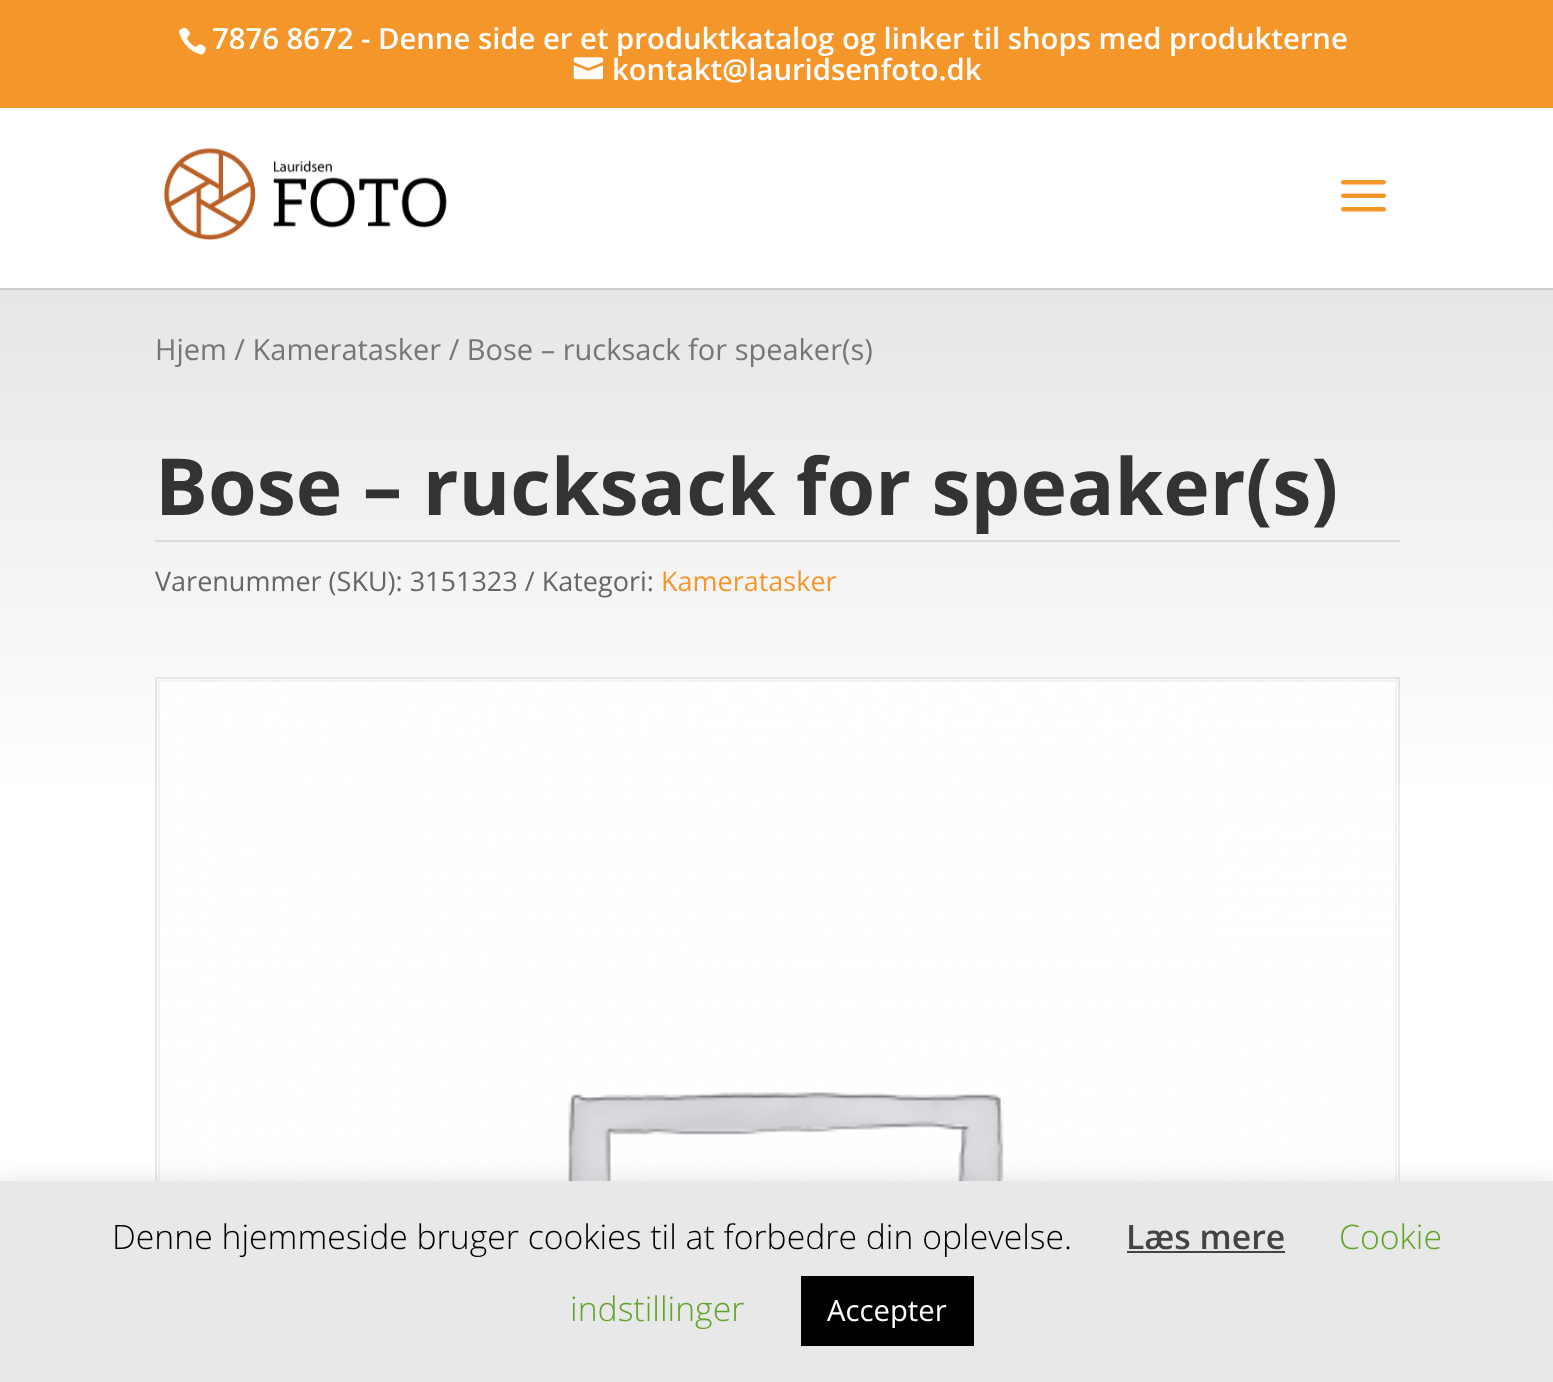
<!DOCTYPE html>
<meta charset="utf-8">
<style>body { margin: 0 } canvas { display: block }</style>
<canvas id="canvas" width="1553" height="1382"></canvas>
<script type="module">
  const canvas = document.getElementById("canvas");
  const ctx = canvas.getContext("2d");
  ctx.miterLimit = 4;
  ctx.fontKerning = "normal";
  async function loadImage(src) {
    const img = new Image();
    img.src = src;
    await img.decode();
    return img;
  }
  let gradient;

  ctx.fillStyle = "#f5962b";
  ctx.fillRect(0, 0, 1553, 1382);
  ctx.drawImage(await loadImage("img1.png"), 179, 27, 27, 28);
  ctx.font = "600 29.25px Open Sans";
  ctx.fillStyle = "#ffffff";
  ctx.fillText("7876 8672 - Denne side er et produktkatalog og linker til shops med produkterne", 212, 49);
  ctx.drawImage(await loadImage("img2.png"), 573, 57, 30, 23);
  ctx.fillText("kontakt@lauridsenfoto.dk", 612, 80);
  ctx.fillStyle = "#cfcfcf";
  ctx.beginPath();
  ctx.moveTo(0, 288);
  ctx.lineTo(0, 290);
  ctx.lineTo(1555, 290);
  ctx.lineTo(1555, 110);
  ctx.lineTo(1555, 288);
  ctx.closePath();
  ctx.fill();
  ctx.fillStyle = "#ffffff";
  ctx.fillRect(0, 108, 1553, 180);
  ctx.drawImage(await loadImage("img3.png"), 164, 148, 283, 93);
  ctx.drawImage(await loadImage("img4.png"), 1341, 180, 45, 32);
  gradient = ctx.createLinearGradient(777, 284, 777, 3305);
  gradient.addColorStop(0, "#e6e6e6");
  gradient.addColorStop(0.17, "#ffffff");
  ctx.fillStyle = gradient;
  ctx.fillRect(0, 290, 1553, 891);
  ctx.font = "29px Open Sans";
  ctx.fillStyle = "#767676";
  ctx.fillText("Hjem / Kameratasker / Bose – rucksack for speaker(s)", 155, 360);
  ctx.font = "bold 78.75px Open Sans";
  ctx.fillStyle = "#333333";
  ctx.fillText("Bose – rucksack for speaker(s)", 155, 515);
  ctx.fillStyle = "#dadada";
  ctx.fillRect(155, 540, 1245, 2);
  ctx.font = "27px Open Sans";
  ctx.fillStyle = "#666666";
  ctx.fillText("Varenummer (SKU): 3151323 / Kategori:", 155, 591);
  ctx.fillStyle = "#f5962b";
  ctx.fillText("Kameratasker", 661, 591);
  ctx.strokeStyle = "rgba(51, 51, 51, 0.1)";
  ctx.lineWidth = 2;
  ctx.strokeRect(156, 678, 1243, 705);
  ctx.strokeStyle = "#f2f2f2";
  ctx.strokeRect(159, 681, 1237, 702);
  ctx.drawImage(await loadImage("img5.png"), 160, 682, 1235, 499);
  ctx.fillStyle = "rgba(172, 171, 171, 0.3)";
  ctx.filter = "blur(11px)";
  ctx.beginPath();
  ctx.rect(0, 1179, 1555, 203);
  ctx.fill();
  ctx.filter = "none";
  ctx.fillStyle = "#e8e8e8";
  ctx.fillRect(0, 1181, 1553, 201);
  ctx.font = "300 33.75px Open Sans";
  ctx.fillStyle = "#000000";
  ctx.fillText("Denne hjemmeside bruger cookies til at forbedre din oplevelse.", 112, 1249);
  ctx.font = "600 33.75px Open Sans";
  ctx.fillStyle = "#444444";
  ctx.fillText("Læs mere", 1126, 1249);
  ctx.fillRect(1127, 1251, 158, 2);
  ctx.font = "300 33.75px Open Sans";
  ctx.fillStyle = "#62a329";
  ctx.fillText("Cookie", 1339, 1249);
  ctx.fillText("indstillinger", 570, 1321);
  ctx.fillStyle = "#000000";
  ctx.fillRect(801, 1276, 173, 70);
  ctx.font = "29.25px Open Sans";
  ctx.fillStyle = "#ffffff";
  ctx.fillText("Accepter", 827, 1321);
</script>
